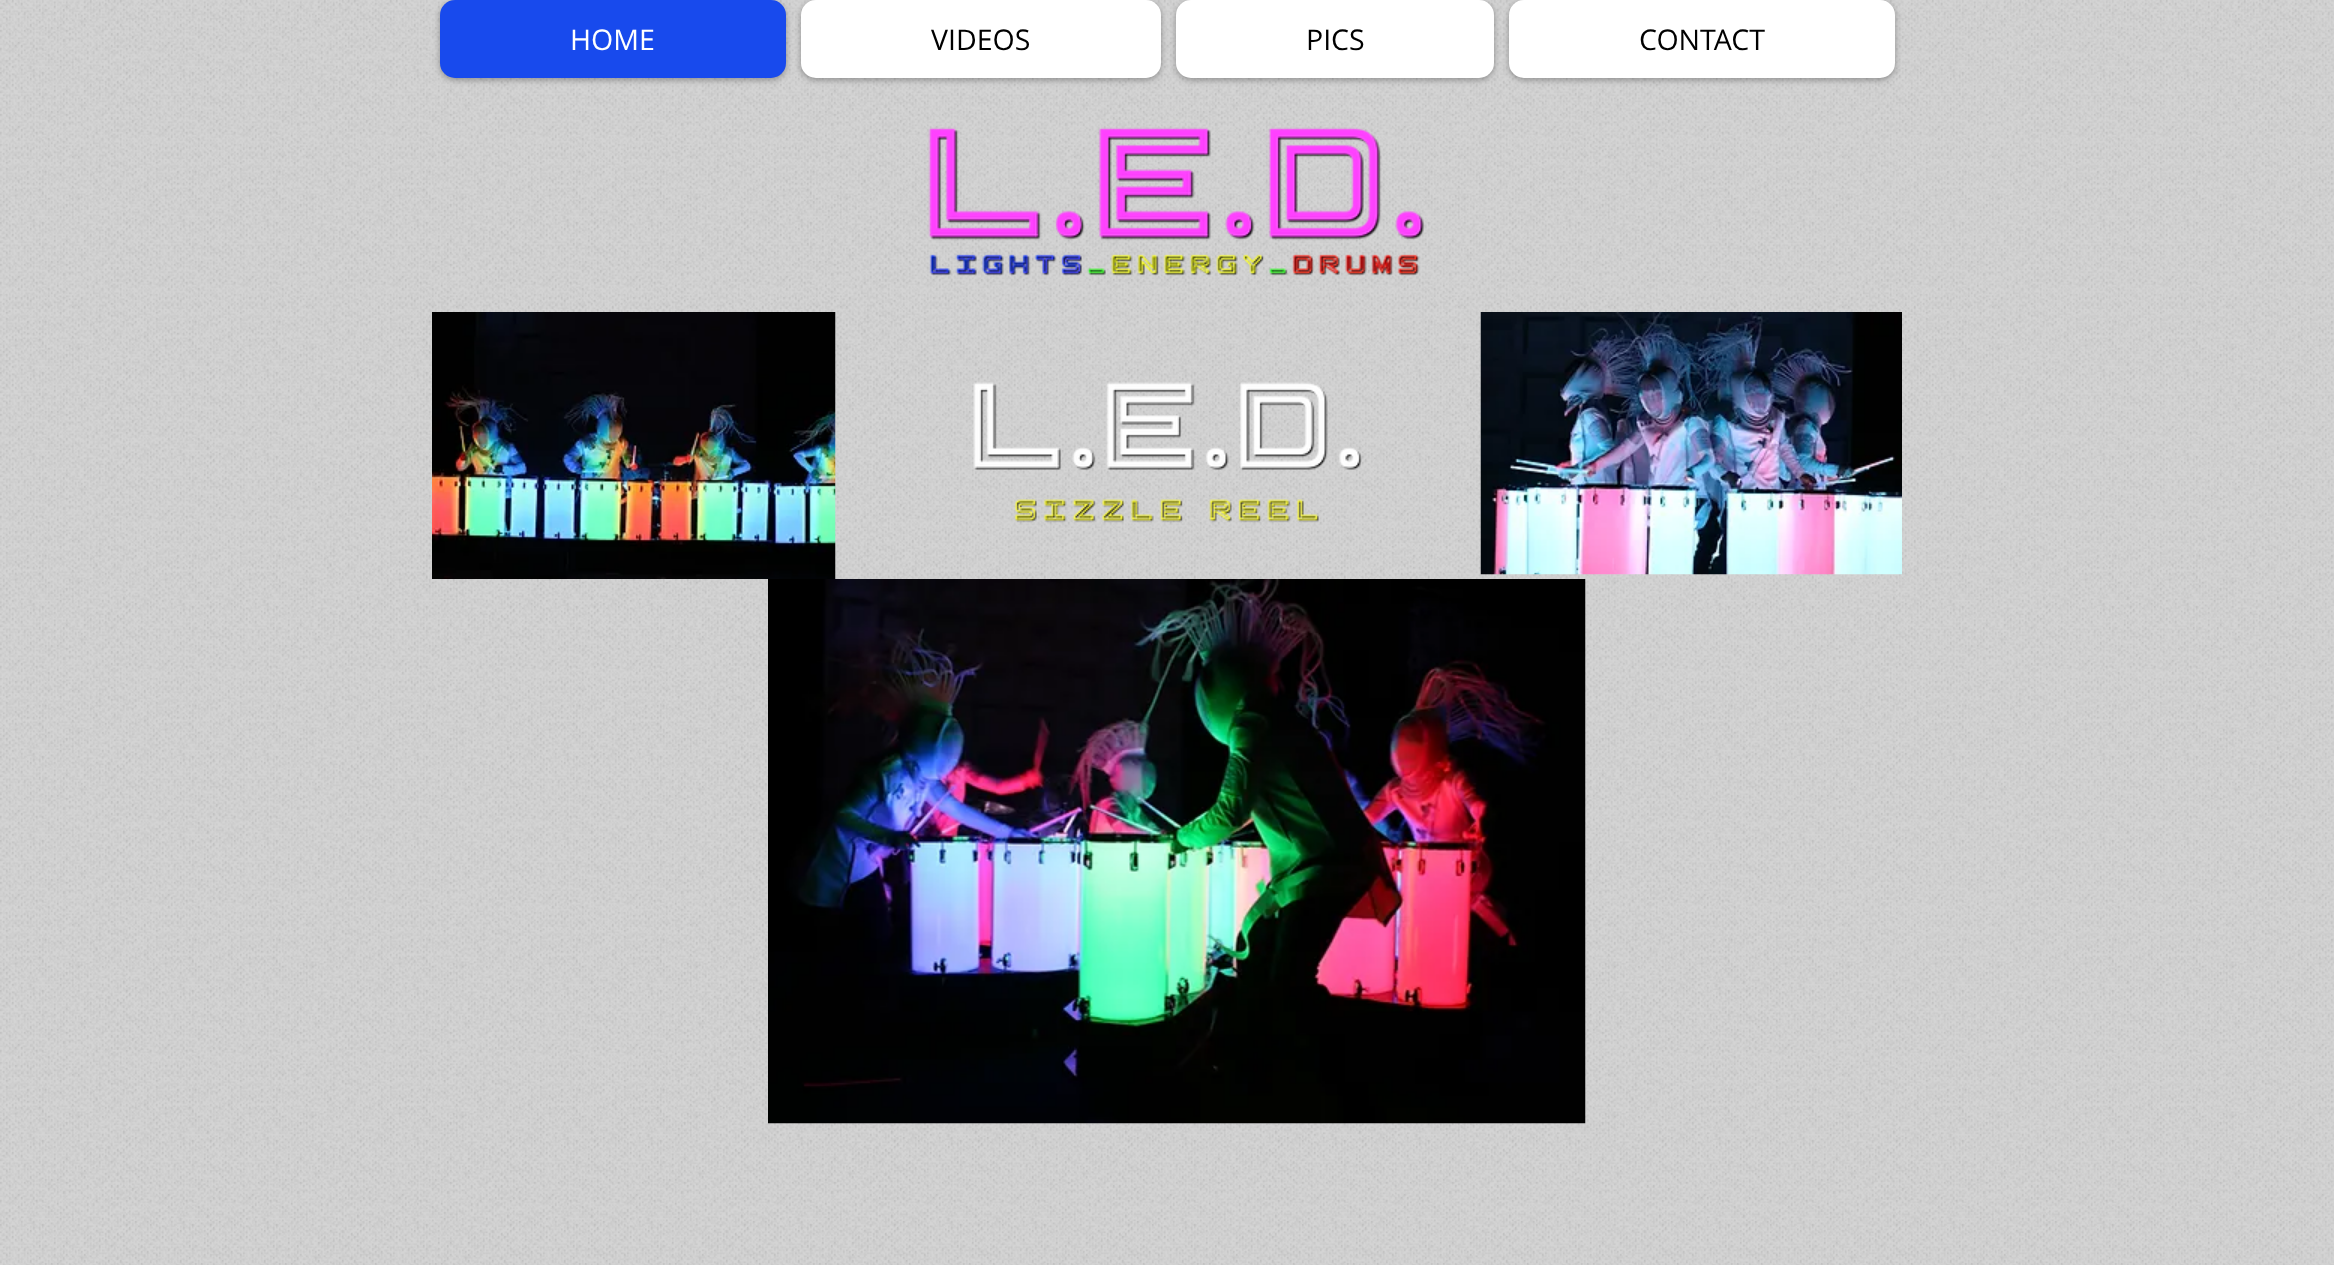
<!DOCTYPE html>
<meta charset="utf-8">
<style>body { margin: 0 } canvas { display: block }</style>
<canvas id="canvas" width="2334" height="1265"></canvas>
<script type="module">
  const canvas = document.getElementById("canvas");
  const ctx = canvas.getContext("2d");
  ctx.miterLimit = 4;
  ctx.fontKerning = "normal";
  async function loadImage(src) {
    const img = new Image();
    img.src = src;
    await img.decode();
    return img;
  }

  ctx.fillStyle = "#d4d4d4";
  ctx.fillRect(0, 0, 2334, 1265);
  ctx.drawImage(await loadImage("img1.png"), 0, 0, 2334, 1265);
  ctx.fillStyle = "rgba(0, 0, 0, 0.31)";
  ctx.filter = "blur(3px)";
  ctx.beginPath();
  ctx.roundRect(440, 2, 346, 78, 15);
  ctx.fill();
  ctx.filter = "none";
  ctx.fillStyle = "#184aed";
  ctx.beginPath();
  ctx.roundRect(440, 0, 346, 78, 15);
  ctx.fill();
  ctx.font = "28.5px Open Sans";
  ctx.fillStyle = "#ffffff";
  ctx.fillText("HOME", 570, 50);
  ctx.fillStyle = "rgba(0, 0, 0, 0.31)";
  ctx.filter = "blur(3px)";
  ctx.beginPath();
  ctx.roundRect(801, 2, 360, 78, 15);
  ctx.fill();
  ctx.filter = "none";
  ctx.fillStyle = "#ffffff";
  ctx.beginPath();
  ctx.roundRect(801, 0, 360, 78, 15);
  ctx.fill();
  ctx.fillStyle = "#000000";
  ctx.fillText("VIDEOS", 931, 50);
  ctx.fillStyle = "rgba(0, 0, 0, 0.31)";
  ctx.filter = "blur(3px)";
  ctx.beginPath();
  ctx.roundRect(1176, 2, 318, 78, 15);
  ctx.fill();
  ctx.filter = "none";
  ctx.fillStyle = "#ffffff";
  ctx.beginPath();
  ctx.roundRect(1176, 0, 318, 78, 15);
  ctx.fill();
  ctx.fillStyle = "#000000";
  ctx.fillText("PICS", 1306, 50);
  ctx.fillStyle = "rgba(0, 0, 0, 0.31)";
  ctx.filter = "blur(3px)";
  ctx.beginPath();
  ctx.roundRect(1509, 2, 386, 78, 15);
  ctx.fill();
  ctx.filter = "none";
  ctx.fillStyle = "#ffffff";
  ctx.beginPath();
  ctx.roundRect(1509, 0, 386, 78, 15);
  ctx.fill();
  ctx.fillStyle = "#000000";
  ctx.fillText("CONTACT", 1639, 50);
  ctx.drawImage(await loadImage("img2.png"), 928, 127, 497, 149);
  ctx.drawImage(await loadImage("img3.png"), 432, 312, 404, 267);
  ctx.drawImage(await loadImage("img4.png"), 973, 382, 389, 141);
  ctx.drawImage(await loadImage("img5.png"), 1480, 312, 422, 263);
  ctx.drawImage(await loadImage("img6.png"), 768, 579, 818, 545);
</script>
